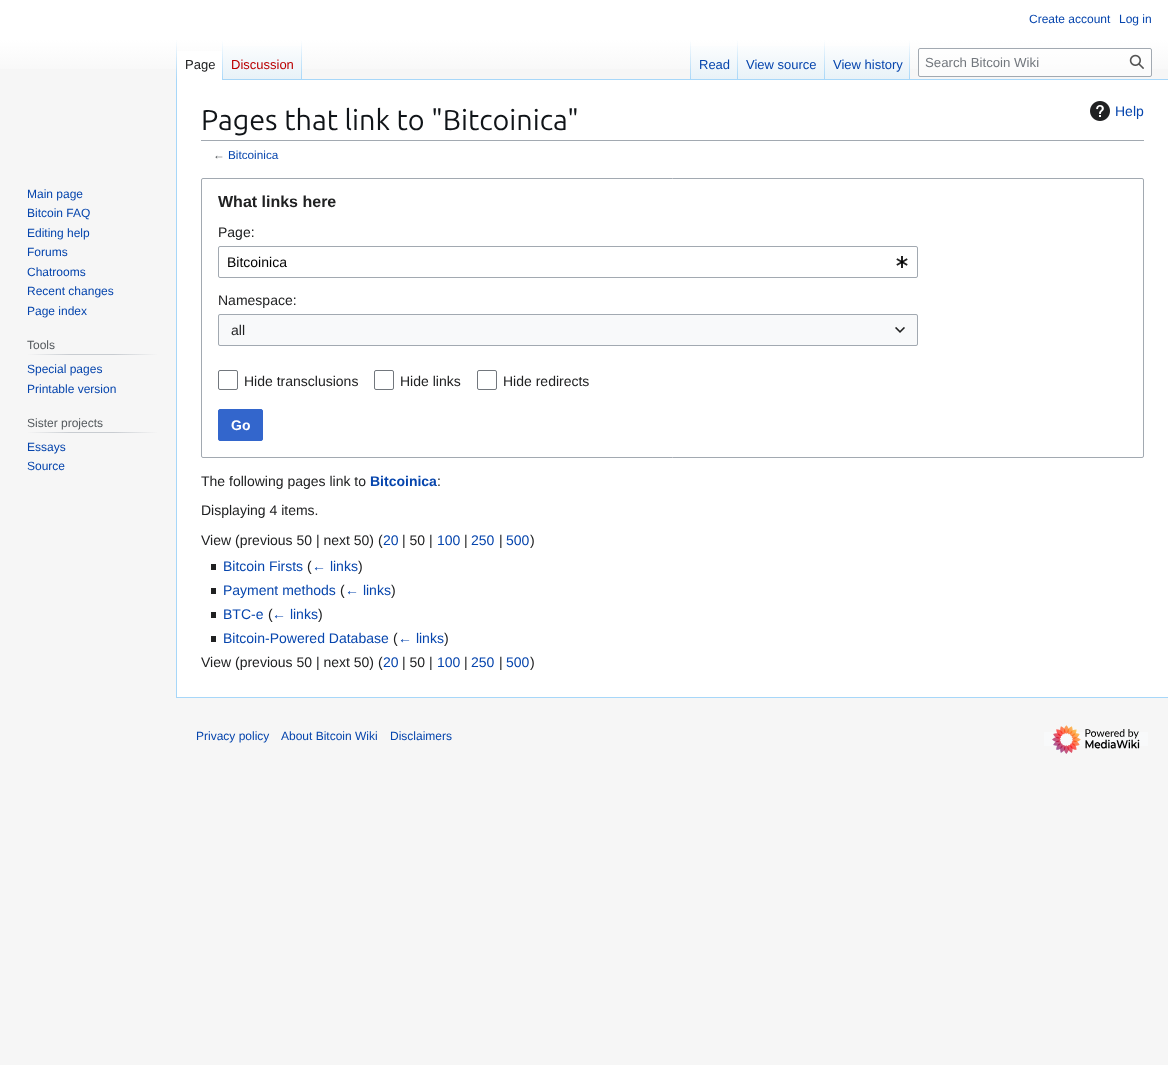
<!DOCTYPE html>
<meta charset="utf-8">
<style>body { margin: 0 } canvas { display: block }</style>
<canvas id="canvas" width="1168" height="1065"></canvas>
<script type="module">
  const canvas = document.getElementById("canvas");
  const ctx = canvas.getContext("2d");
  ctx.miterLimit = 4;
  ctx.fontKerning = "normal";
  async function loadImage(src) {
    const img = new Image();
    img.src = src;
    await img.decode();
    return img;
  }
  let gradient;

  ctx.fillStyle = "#f6f6f6";
  ctx.fillRect(0, 0, 1168, 1065);
  gradient = ctx.createLinearGradient(584, 0, 584, 80);
  gradient.addColorStop(0.5, "#ffffff");
  gradient.addColorStop(1, "#f6f6f6");
  ctx.fillStyle = gradient;
  ctx.fillRect(0, 0, 1168, 69);
  ctx.font = "12px Liberation Sans";
  ctx.fillStyle = "#0645ad";
  ctx.fillText("Create account", 1029, 23);
  ctx.fillText("Log in", 1119, 23);
  ctx.fillStyle = "#a7d7f9";
  ctx.fillRect(176, 697, 992, 1);
  ctx.fillRect(176, 79, 1, 619);
  gradient = ctx.createLinearGradient(177, 40, 177, 80);
  gradient.addColorStop(0, "rgba(167, 215, 249, 0)");
  gradient.addColorStop(1, "#a7d7f9");
  ctx.fillStyle = gradient;
  ctx.fillRect(176, 40, 1, 40);
  ctx.fillStyle = "#ffffff";
  ctx.fillRect(177, 51, 45, 29);
  gradient = ctx.createLinearGradient(223, 40, 223, 80);
  gradient.addColorStop(0, "#ffffff");
  gradient.addColorStop(1, "#a7d7f9");
  ctx.fillStyle = gradient;
  ctx.fillRect(222, 40, 1, 40);
  ctx.font = "13px Liberation Sans";
  ctx.fillStyle = "#202122";
  ctx.fillText("Page", 185, 69);
  gradient = ctx.createLinearGradient(263, 80, 263, 40);
  gradient.addColorStop(0, "#77c1f6");
  gradient.addColorStop(0.03, "#e8f2f8");
  gradient.addColorStop(1, "#ffffff");
  ctx.fillStyle = gradient;
  ctx.fillRect(223, 46, 79, 34);
  gradient = ctx.createLinearGradient(302, 40, 302, 80);
  gradient.addColorStop(0, "rgba(167, 215, 249, 0)");
  gradient.addColorStop(1, "#a7d7f9");
  ctx.fillStyle = gradient;
  ctx.fillRect(301, 40, 1, 40);
  ctx.fillStyle = "#ba0000";
  ctx.fillText("Discussion", 231, 69);
  ctx.fillStyle = "#a7d7f9";
  ctx.fillRect(302, 79, 866, 1);
  gradient = ctx.createLinearGradient(691, 40, 691, 80);
  gradient.addColorStop(0, "rgba(167, 215, 249, 0)");
  gradient.addColorStop(1, "#a7d7f9");
  ctx.fillStyle = gradient;
  ctx.fillRect(690, 40, 1, 40);
  gradient = ctx.createLinearGradient(715, 80, 715, 40);
  gradient.addColorStop(0, "#77c1f6");
  gradient.addColorStop(0.03, "#e8f2f8");
  gradient.addColorStop(1, "#ffffff");
  ctx.fillStyle = gradient;
  ctx.fillRect(691, 46, 47, 33);
  gradient = ctx.createLinearGradient(738, 40, 738, 80);
  gradient.addColorStop(0, "rgba(167, 215, 249, 0)");
  gradient.addColorStop(1, "#a7d7f9");
  ctx.fillStyle = gradient;
  ctx.fillRect(737, 40, 1, 40);
  ctx.fillStyle = "#0645ad";
  ctx.fillText("Read", 699, 69);
  gradient = ctx.createLinearGradient(782, 80, 782, 40);
  gradient.addColorStop(0, "#77c1f6");
  gradient.addColorStop(0.03, "#e8f2f8");
  gradient.addColorStop(1, "#ffffff");
  ctx.fillStyle = gradient;
  ctx.fillRect(738, 46, 87, 33);
  gradient = ctx.createLinearGradient(825, 40, 825, 80);
  gradient.addColorStop(0, "rgba(167, 215, 249, 0)");
  gradient.addColorStop(1, "#a7d7f9");
  ctx.fillStyle = gradient;
  ctx.fillRect(824, 40, 1, 40);
  ctx.fillStyle = "#0645ad";
  ctx.fillText("View source", 746, 69);
  gradient = ctx.createLinearGradient(868, 80, 868, 40);
  gradient.addColorStop(0, "#77c1f6");
  gradient.addColorStop(0.03, "#e8f2f8");
  gradient.addColorStop(1, "#ffffff");
  ctx.fillStyle = gradient;
  ctx.fillRect(825, 46, 85, 33);
  gradient = ctx.createLinearGradient(910, 40, 910, 80);
  gradient.addColorStop(0, "rgba(167, 215, 249, 0)");
  gradient.addColorStop(1, "#a7d7f9");
  ctx.fillStyle = gradient;
  ctx.fillRect(909, 40, 1, 40);
  ctx.fillStyle = "#0645ad";
  ctx.fillText("View history", 833, 69);
  ctx.fillStyle = "rgba(255, 255, 255, 0.5)";
  ctx.beginPath();
  ctx.roundRect(918.5, 48.5, 233, 28, 1.5);
  ctx.fill();
  ctx.strokeStyle = "#a2a9b1";
  ctx.stroke();
  ctx.font = "13.25px Liberation Sans";
  ctx.fillStyle = "#72777d";
  ctx.fillText("Search Bitcoin Wiki", 925, 67);
  ctx.drawImage(await loadImage("img1.png"), 1129, 54, 15, 15);
  ctx.font = "12px Liberation Sans";
  ctx.fillStyle = "#0645ad";
  ctx.fillText("Main page", 27, 198);
  ctx.fillText("Bitcoin FAQ", 27, 217);
  ctx.fillText("Editing help", 27, 237);
  ctx.fillText("Forums", 27, 256);
  ctx.fillText("Chatrooms", 27, 276);
  ctx.fillText("Recent changes", 27, 295);
  ctx.fillText("Page index", 27, 315);
  gradient = ctx.createLinearGradient(27, 355, 158, 355);
  gradient.addColorStop(0, "#f6f6f6");
  gradient.addColorStop(0.33, "#c8ccd1");
  gradient.addColorStop(0.66, "#c8ccd1");
  gradient.addColorStop(1, "#f6f6f6");
  ctx.fillStyle = gradient;
  ctx.fillRect(27, 354, 131, 1);
  ctx.fillStyle = "#54595d";
  ctx.fillText("Tools", 27, 349);
  ctx.fillStyle = "#0645ad";
  ctx.fillText("Special pages", 27, 373);
  ctx.fillText("Printable version", 27, 393);
  gradient = ctx.createLinearGradient(27, 433, 158, 433);
  gradient.addColorStop(0, "#f6f6f6");
  gradient.addColorStop(0.33, "#c8ccd1");
  gradient.addColorStop(0.66, "#c8ccd1");
  gradient.addColorStop(1, "#f6f6f6");
  ctx.fillStyle = gradient;
  ctx.fillRect(27, 432, 131, 1);
  ctx.fillStyle = "#54595d";
  ctx.fillText("Sister projects", 27, 427);
  ctx.fillStyle = "#0645ad";
  ctx.fillText("Essays", 27, 451);
  ctx.fillText("Source", 27, 470);
  ctx.fillStyle = "#ffffff";
  ctx.fillRect(177, 80, 991, 617);
  ctx.fillStyle = "#a2a9b1";
  ctx.fillRect(201, 140, 943, 1);
  ctx.font = "28.75px Ubuntu";
  ctx.fillStyle = "#101418";
  ctx.fillText("Pages that link to \"Bitcoinica\"", 201, 130);
  ctx.drawImage(await loadImage("img2.png"), 1090, 101, 20, 20);
  ctx.font = "14px Liberation Sans";
  ctx.fillStyle = "#0645ad";
  ctx.fillText("Help", 1115, 116);
  ctx.font = "11.75px Liberation Sans";
  ctx.fillStyle = "#54595d";
  ctx.fillText("←", 213, 159);
  ctx.fillStyle = "#0645ad";
  ctx.fillText("Bitcoinica", 228, 159);
  ctx.beginPath();
  ctx.roundRect(201.5, 178.5, 942, 279, 1.5);
  ctx.stroke();
  ctx.font = "bold 16px Liberation Sans";
  ctx.fillStyle = "#202122";
  ctx.fillText("What links here", 218, 207);
  ctx.font = "14px Liberation Sans";
  ctx.fillText("Page:", 218, 237);
  ctx.beginPath();
  ctx.roundRect(218.5, 246.5, 699, 31, 1.5);
  ctx.stroke();
  ctx.fillStyle = "#000000";
  ctx.fillText("Bitcoinica", 227, 267);
  ctx.drawImage(await loadImage("img3.png"), 896, 256, 12, 12);
  ctx.fillStyle = "#202122";
  ctx.fillText("Namespace:", 218, 305);
  ctx.fillStyle = "#f8f9fa";
  ctx.fillRect(218, 314, 700, 32);
  ctx.beginPath();
  ctx.roundRect(218.5, 314.5, 699, 31, 1.5);
  ctx.stroke();
  ctx.fillStyle = "#202122";
  ctx.fillText("all", 231, 335);
  ctx.drawImage(await loadImage("img4.png"), 895, 327, 10, 6);
  ctx.beginPath();
  ctx.roundRect(218.5, 370.5, 19, 19, 1.5);
  ctx.strokeStyle = "#72777d";
  ctx.stroke();
  ctx.fillText("Hide transclusions", 244, 386);
  ctx.beginPath();
  ctx.roundRect(374.5, 370.5, 19, 19, 1.5);
  ctx.stroke();
  ctx.fillText("Hide links", 400, 386);
  ctx.beginPath();
  ctx.roundRect(477.5, 370.5, 19, 19, 1.5);
  ctx.stroke();
  ctx.fillText("Hide redirects", 503, 386);
  ctx.fillStyle = "#3366cc";
  ctx.beginPath();
  ctx.roundRect(218.5, 409.5, 44, 31, 1.5);
  ctx.fill();
  ctx.strokeStyle = "#3366cc";
  ctx.stroke();
  ctx.font = "bold 14px Liberation Sans";
  ctx.fillStyle = "#ffffff";
  ctx.fillText("Go", 231, 430);
  ctx.font = "14px Liberation Sans";
  ctx.fillStyle = "#202122";
  ctx.fillText("The following pages link to", 201, 486);
  ctx.font = "bold 14px Liberation Sans";
  ctx.fillStyle = "#0645ad";
  ctx.fillText("Bitcoinica", 370, 486);
  ctx.font = "14px Liberation Sans";
  ctx.fillStyle = "#202122";
  ctx.fillText(":", 437, 486);
  ctx.fillText("Displaying 4 items.", 201, 515);
  ctx.fillText("View (previous 50 | next 50) (", 201, 545);
  ctx.fillStyle = "#0645ad";
  ctx.fillText("20", 383, 545);
  ctx.fillStyle = "#202122";
  ctx.fillText("| 50 |", 402, 545);
  ctx.fillStyle = "#0645ad";
  ctx.fillText("100", 437, 545);
  ctx.fillStyle = "#202122";
  ctx.fillText("|", 464, 545);
  ctx.fillStyle = "#0645ad";
  ctx.fillText("250", 471, 545);
  ctx.fillStyle = "#202122";
  ctx.fillText("|", 499, 545);
  ctx.fillStyle = "#0645ad";
  ctx.fillText("500", 506, 545);
  ctx.fillStyle = "#202122";
  ctx.fillText(")", 530, 545);
  ctx.fillRect(211, 564, 5, 6);
  ctx.fillStyle = "#0645ad";
  ctx.fillText("Bitcoin Firsts", 223, 571);
  ctx.fillStyle = "#202122";
  ctx.fillText("(", 307, 571);
  ctx.fillStyle = "#0645ad";
  ctx.fillText("← links", 312, 571);
  ctx.fillStyle = "#202122";
  ctx.fillText(")", 358, 571);
  ctx.fillRect(211, 588, 5, 6);
  ctx.fillStyle = "#0645ad";
  ctx.fillText("Payment methods", 223, 595);
  ctx.fillStyle = "#202122";
  ctx.fillText("(", 340, 595);
  ctx.fillStyle = "#0645ad";
  ctx.fillText("← links", 345, 595);
  ctx.fillStyle = "#202122";
  ctx.fillText(")", 391, 595);
  ctx.fillRect(211, 612, 5, 6);
  ctx.fillStyle = "#0645ad";
  ctx.fillText("BTC-e", 223, 619);
  ctx.fillStyle = "#202122";
  ctx.fillText("(", 268, 619);
  ctx.fillStyle = "#0645ad";
  ctx.fillText("← links", 272, 619);
  ctx.fillStyle = "#202122";
  ctx.fillText(")", 318, 619);
  ctx.fillRect(211, 636, 5, 6);
  ctx.fillStyle = "#0645ad";
  ctx.fillText("Bitcoin-Powered Database", 223, 643);
  ctx.fillStyle = "#202122";
  ctx.fillText("(", 393, 643);
  ctx.fillStyle = "#0645ad";
  ctx.fillText("← links", 398, 643);
  ctx.fillStyle = "#202122";
  ctx.fillText(")", 444, 643);
  ctx.fillText("View (previous 50 | next 50) (", 201, 667);
  ctx.fillStyle = "#0645ad";
  ctx.fillText("20", 383, 667);
  ctx.fillStyle = "#202122";
  ctx.fillText("| 50 |", 402, 667);
  ctx.fillStyle = "#0645ad";
  ctx.fillText("100", 437, 667);
  ctx.fillStyle = "#202122";
  ctx.fillText("|", 464, 667);
  ctx.fillStyle = "#0645ad";
  ctx.fillText("250", 471, 667);
  ctx.fillStyle = "#202122";
  ctx.fillText("|", 499, 667);
  ctx.fillStyle = "#0645ad";
  ctx.fillText("500", 506, 667);
  ctx.fillStyle = "#202122";
  ctx.fillText(")", 530, 667);
  ctx.font = "12px Liberation Sans";
  ctx.fillStyle = "#0645ad";
  ctx.fillText("Privacy policy", 196, 740);
  ctx.fillText("About Bitcoin Wiki", 281, 740);
  ctx.fillText("Disclaimers", 390, 740);
  ctx.fillStyle = "#f8f9fa";
  ctx.fillRect(1044, 732, 104, 14);
  ctx.drawImage(await loadImage("img5.png"), 1052, 725, 88, 29);
</script>
